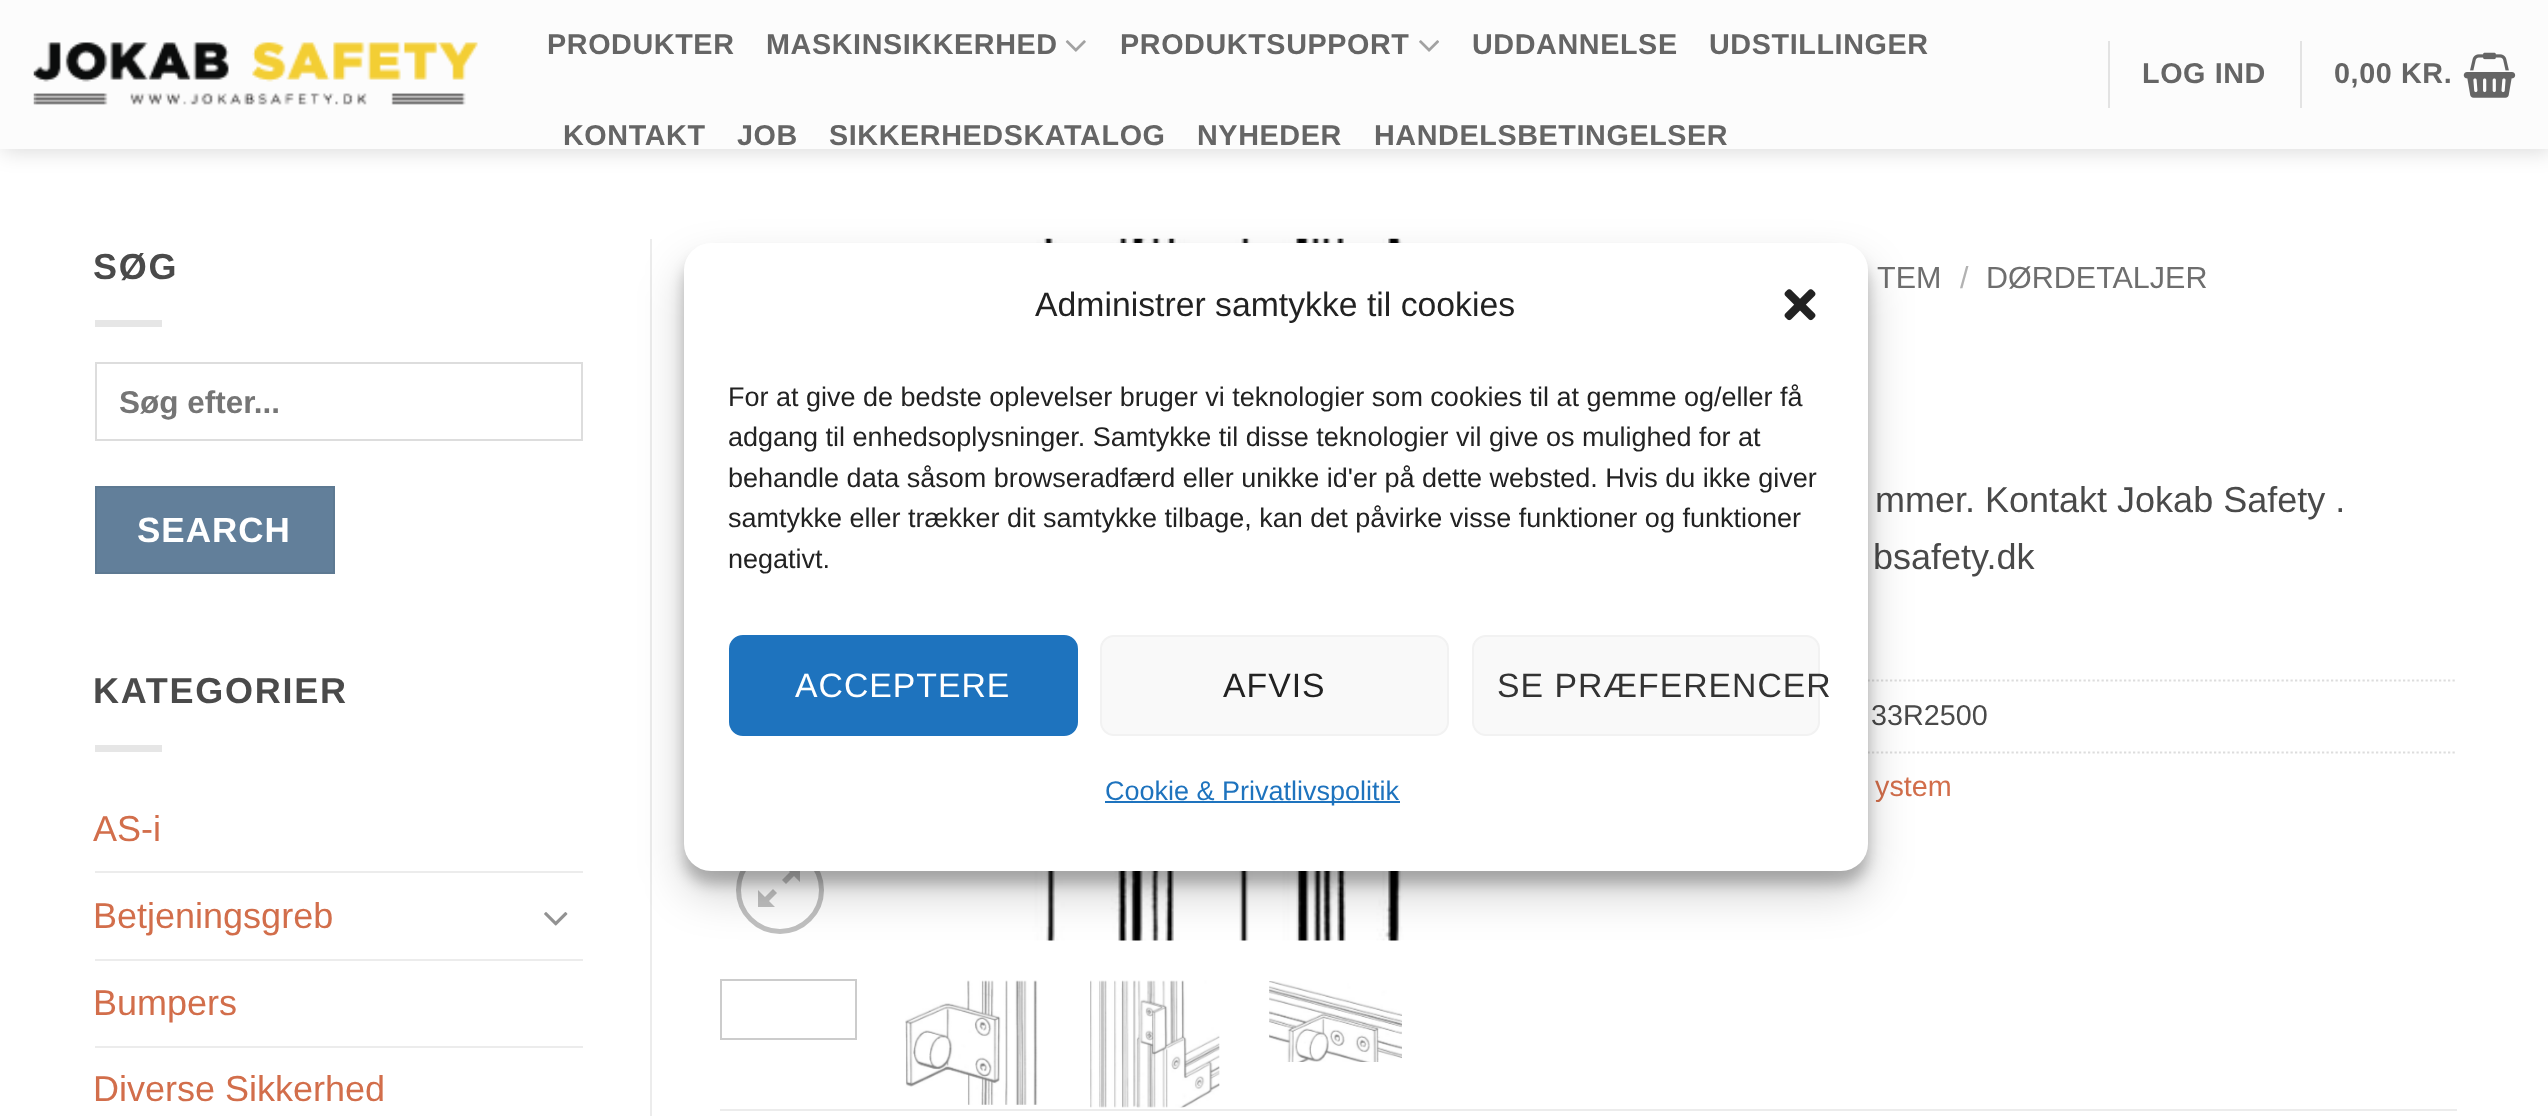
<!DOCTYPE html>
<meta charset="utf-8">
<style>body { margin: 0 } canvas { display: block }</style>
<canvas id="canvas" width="2548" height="1116"></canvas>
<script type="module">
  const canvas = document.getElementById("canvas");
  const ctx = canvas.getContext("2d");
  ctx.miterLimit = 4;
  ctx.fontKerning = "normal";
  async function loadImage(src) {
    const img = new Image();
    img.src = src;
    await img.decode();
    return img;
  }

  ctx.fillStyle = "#ffffff";
  ctx.fillRect(0, 0, 2548, 1116);
  ctx.save();
  ctx.beginPath();
  ctx.moveTo(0, 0);
  ctx.lineTo(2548, 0);
  ctx.lineTo(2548, 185);
  ctx.lineTo(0, 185);
  ctx.closePath();
  ctx.moveTo(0, 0);
  ctx.lineTo(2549, 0);
  ctx.lineTo(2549, 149);
  ctx.lineTo(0, 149);
  ctx.closePath();
  ctx.clip("evenodd");
  ctx.fillStyle = "rgba(0, 0, 0, 0.15)";
  ctx.filter = "blur(11px)";
  ctx.beginPath();
  ctx.rect(2, 2, 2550, 149);
  ctx.fill();
  ctx.filter = "none";
  ctx.restore();
  ctx.fillStyle = "rgba(252, 252, 252, 0.9)";
  ctx.fillRect(0, 0, 2548, 149);
  ctx.drawImage(await loadImage("img1.png"), 33, 42, 445, 63);
  ctx.letterSpacing = "0.6px";
  ctx.font = "bold 28.75px Liberation Sans";
  ctx.fillStyle = "#656565";
  ctx.fillText("PRODUKTER", 547, 54);
  ctx.fillText("MASKINSIKKERHED", 766, 54);
  ctx.drawImage(await loadImage("img2.png"), 1065, 40, 21, 12);
  ctx.fillText("PRODUKTSUPPORT", 1120, 54);
  ctx.drawImage(await loadImage("img3.png"), 1419, 40, 20, 12);
  ctx.fillText("UDDANNELSE", 1472, 54);
  ctx.fillText("UDSTILLINGER", 1709, 54);
  ctx.fillText("KONTAKT", 563, 145);
  ctx.fillText("JOB", 737, 145);
  ctx.fillText("SIKKERHEDSKATALOG", 829, 145);
  ctx.fillText("NYHEDER", 1197, 145);
  ctx.fillText("HANDELSBETINGELSER", 1374, 145);
  ctx.fillStyle = "#e3e3e3";
  ctx.fillRect(2108, 41, 2, 67);
  ctx.fillStyle = "#656565";
  ctx.fillText("LOG IND", 2142, 83);
  ctx.fillStyle = "#e3e3e3";
  ctx.fillRect(2300, 41, 2, 67);
  ctx.fillStyle = "#656565";
  ctx.fillText("0,00 KR.", 2334, 83);
  ctx.drawImage(await loadImage("img4.png"), 2463, 52, 53, 46);
  ctx.letterSpacing = "1.75px";
  ctx.font = "bold 36px Liberation Sans";
  ctx.fillStyle = "#4a4a4a";
  ctx.fillText("SØG", 93, 279);
  ctx.fillStyle = "#e6e6e6";
  ctx.fillRect(95, 320, 67, 7);
  ctx.strokeStyle = "#dddddd";
  ctx.lineWidth = 2;
  ctx.strokeRect(96, 363, 486, 77);
  ctx.letterSpacing = "0px";
  ctx.font = "bold 31.5px Liberation Sans";
  ctx.fillStyle = "#757575";
  ctx.fillText("Søg efter...", 119, 413);
  ctx.fillStyle = "#627f9a";
  ctx.beginPath();
  ctx.rect(96, 487, 238, 86);
  ctx.fill();
  ctx.strokeStyle = "#5d7992";
  ctx.stroke();
  ctx.letterSpacing = "1px";
  ctx.font = "bold 35px Liberation Sans";
  ctx.fillStyle = "#ffffff";
  ctx.fillText("SEARCH", 137, 542);
  ctx.letterSpacing = "1.75px";
  ctx.font = "bold 36px Liberation Sans";
  ctx.fillStyle = "#4a4a4a";
  ctx.fillText("KATEGORIER", 93, 703);
  ctx.fillStyle = "#e6e6e6";
  ctx.fillRect(95, 745, 67, 7);
  ctx.letterSpacing = "0px";
  ctx.font = "36px Liberation Sans";
  ctx.fillStyle = "#d26e4b";
  ctx.fillText("AS-i", 93, 841);
  ctx.fillStyle = "#ececec";
  ctx.fillRect(95, 871, 488, 2);
  ctx.fillStyle = "#d26e4b";
  ctx.fillText("Betjeningsgreb", 93, 928);
  ctx.drawImage(await loadImage("img5.png"), 544, 912, 24, 14);
  ctx.fillStyle = "#ececec";
  ctx.fillRect(95, 959, 488, 2);
  ctx.fillStyle = "#d26e4b";
  ctx.fillText("Bumpers", 93, 1015);
  ctx.fillStyle = "#ececec";
  ctx.fillRect(95, 1046, 488, 2);
  ctx.fillStyle = "#d26e4b";
  ctx.fillText("Diverse Sikkerhed", 93, 1101);
  ctx.fillStyle = "#ececec";
  ctx.fillRect(650, 239, 2, 877);
  ctx.drawImage(await loadImage("img6.png"), 720, 238, 684, 703);
  ctx.beginPath();
  ctx.arc(780, 890, 41.5, 0, Math.PI * 2);
  ctx.strokeStyle = "#c0c0c0";
  ctx.lineWidth = 5;
  ctx.stroke();
  ctx.fillStyle = "#c0c0c0";
  ctx.beginPath();
  ctx.moveTo(800, 865);
  ctx.lineTo(800, 882);
  ctx.lineTo(794, 876);
  ctx.lineTo(786, 884);
  ctx.lineTo(782, 880);
  ctx.lineTo(790, 872);
  ctx.lineTo(783, 865);
  ctx.closePath();
  ctx.moveTo(777, 893);
  ctx.lineTo(769, 901);
  ctx.lineTo(775, 907);
  ctx.lineTo(758, 907);
  ctx.lineTo(758, 890);
  ctx.lineTo(765, 897);
  ctx.lineTo(773, 889);
  ctx.closePath();
  ctx.fill();
  ctx.strokeStyle = "#cccccc";
  ctx.lineWidth = 2;
  ctx.strokeRect(721, 980, 135, 59);
  ctx.drawImage(await loadImage("img7.png"), 905, 980, 133, 125);
  ctx.drawImage(await loadImage("img8.png"), 1090, 980, 130, 128);
  ctx.drawImage(await loadImage("img9.png"), 1269, 981, 133, 81);
  ctx.font = "30.5px Liberation Sans";
  ctx.fillStyle = "#6e6e6e";
  ctx.fillText("TEM", 1877, 288);
  ctx.fillStyle = "#b2b2b2";
  ctx.fillText("/", 1960, 288);
  ctx.fillStyle = "#6e6e6e";
  ctx.fillText("DØRDETALJER", 1986, 288);
  ctx.font = "36px Liberation Sans";
  ctx.fillStyle = "#4a4a4a";
  ctx.fillText("mmer. Kontakt Jokab Safety .", 1875, 512);
  ctx.fillText("bsafety.dk", 1873, 569);
  ctx.beginPath();
  ctx.moveTo(1471.5, 680.5);
  ctx.lineTo(2457, 680.5);
  ctx.strokeStyle = "#dddddd";
  ctx.lineWidth = 2.2;
  ctx.setLineDash([2.25, 2.25]);
  ctx.stroke();
  ctx.font = "28.75px Liberation Sans";
  ctx.fillText("33R2500", 1871, 725);
  ctx.beginPath();
  ctx.moveTo(1471.5, 752.5);
  ctx.lineTo(2457, 752.5);
  ctx.stroke();
  ctx.fillStyle = "#d26e4b";
  ctx.fillText("ystem", 1875, 796);
  ctx.fillStyle = "#ececec";
  ctx.fillRect(720, 1109, 1737, 2);
  ctx.fillStyle = "rgba(0, 0, 0, 0.23)";
  ctx.filter = "blur(7px)";
  ctx.beginPath();
  ctx.roundRect(684, 257, 1184, 627, 27);
  ctx.fill();
  ctx.filter = "none";
  ctx.fillStyle = "rgba(0, 0, 0, 0.19)";
  ctx.filter = "blur(22.5px)";
  ctx.beginPath();
  ctx.roundRect(684, 266, 1184, 627, 27);
  ctx.fill();
  ctx.filter = "none";
  ctx.fillStyle = "#ffffff";
  ctx.beginPath();
  ctx.roundRect(684, 243, 1184, 628, 27);
  ctx.fill();
  ctx.font = "33.75px Liberation Sans";
  ctx.fillStyle = "#222222";
  ctx.fillText("Administrer samtykke til cookies", 1035, 316);
  ctx.drawImage(await loadImage("img10.png"), 1784, 289, 32, 32);
  ctx.font = "27px Liberation Sans";
  ctx.fillText("For at give de bedste oplevelser bruger vi teknologier som cookies til at gemme og/eller få", 728, 406);
  ctx.fillText("adgang til enhedsoplysninger. Samtykke til disse teknologier vil give os mulighed for at", 728, 446);
  ctx.fillText("behandle data såsom browseradfærd eller unikke id'er på dette websted. Hvis du ikke giver", 728, 487);
  ctx.fillText("samtykke eller trækker dit samtykke tilbage, kan det påvirke visse funktioner og funktioner", 728, 527);
  ctx.fillText("negativt.", 728, 568);
  ctx.fillStyle = "#1e73be";
  ctx.beginPath();
  ctx.roundRect(730, 636, 347, 99, 13);
  ctx.fill();
  ctx.strokeStyle = "#1e73be";
  ctx.lineWidth = 2;
  ctx.setLineDash([]);
  ctx.stroke();
  ctx.letterSpacing = "1px";
  ctx.font = "33.75px Liberation Sans";
  ctx.fillStyle = "#ffffff";
  ctx.fillText("ACCEPTERE", 795, 697);
  ctx.fillStyle = "#f9f9f9";
  ctx.beginPath();
  ctx.roundRect(1101, 636, 347, 99, 13);
  ctx.fill();
  ctx.strokeStyle = "#f2f2f2";
  ctx.stroke();
  ctx.fillStyle = "#222222";
  ctx.fillText("AFVIS", 1223, 697);
  ctx.fillStyle = "#f9f9f9";
  ctx.beginPath();
  ctx.roundRect(1473, 636, 346, 99, 13);
  ctx.fill();
  ctx.stroke();
  ctx.fillStyle = "#333333";
  ctx.fillText("SE PRÆFERENCER", 1497, 697);
  ctx.fillStyle = "#1e73be";
  ctx.fillRect(1105, 801, 295, 2);
  ctx.letterSpacing = "0px";
  ctx.font = "27px Liberation Sans";
  ctx.fillText("Cookie & Privatlivspolitik", 1105, 800);
</script>
